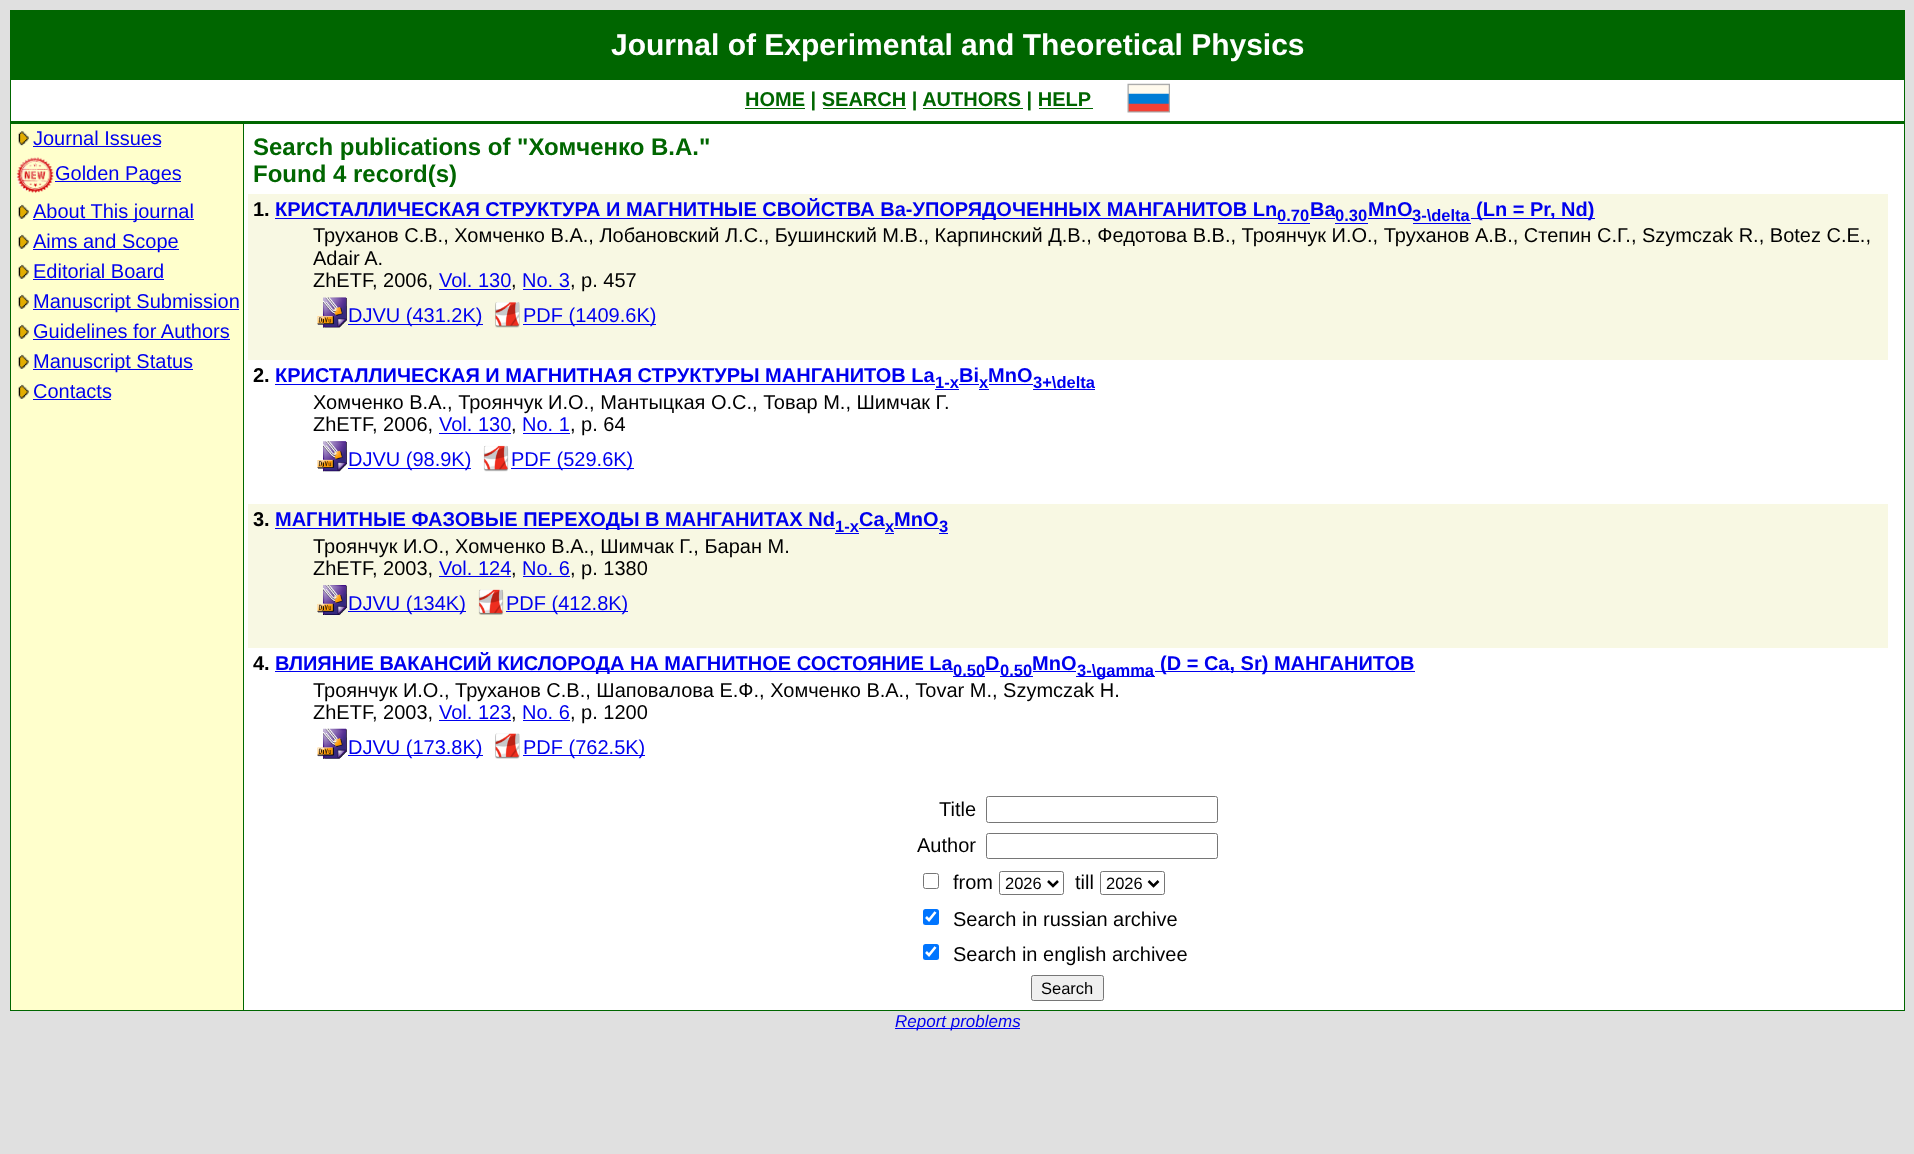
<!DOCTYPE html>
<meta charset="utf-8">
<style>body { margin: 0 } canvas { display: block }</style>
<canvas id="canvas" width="1914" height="1154"></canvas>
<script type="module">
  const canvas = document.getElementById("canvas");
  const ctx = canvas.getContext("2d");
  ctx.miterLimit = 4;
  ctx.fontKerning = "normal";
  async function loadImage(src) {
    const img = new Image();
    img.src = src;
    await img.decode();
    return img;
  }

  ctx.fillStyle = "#e0e0e0";
  ctx.fillRect(0, 0, 1914, 1154);
  ctx.fillStyle = "#006600";
  ctx.fillRect(10, 10, 1895, 1001);
  ctx.fillStyle = "#ffffff";
  ctx.fillRect(11, 80, 1893, 930);
  ctx.font = "bold 30px Liberation Sans";
  ctx.fillText("Journal of Experimental and Theoretical Physics", 611, 55);
  ctx.fillStyle = "#006600";
  ctx.fillRect(745, 108, 60, 1);
  ctx.font = "bold 20px Liberation Sans";
  ctx.fillText("HOME | SEARCH | AUTHORS | HELP", 745, 106);
  ctx.fillRect(823, 108, 83, 1);
  ctx.fillRect(923, 108, 100, 1);
  ctx.fillRect(1039, 108, 54, 1);
  ctx.drawImage(await loadImage("img1.png"), 1127, 83, 43, 30);
  ctx.fillRect(11, 121, 1893, 3);
  ctx.fillStyle = "#ffffcc";
  ctx.fillRect(11, 124, 232, 886);
  ctx.drawImage(await loadImage("img2.png"), 17, 131, 12, 15);
  ctx.font = "20px Liberation Sans";
  ctx.fillStyle = "#0000ee";
  ctx.fillText("Journal Issues", 33, 145);
  ctx.fillRect(33, 146, 128, 1);
  ctx.drawImage(await loadImage("img3.png"), 16, 157, 38, 36);
  ctx.fillRect(55, 181, 126, 1);
  ctx.fillText("Golden Pages", 55, 180);
  ctx.drawImage(await loadImage("img4.png"), 17, 204, 12, 15);
  ctx.fillRect(33, 219, 161, 1);
  ctx.fillText("About This journal", 33, 218);
  ctx.drawImage(await loadImage("img4.png"), 17, 234, 12, 15);
  ctx.fillRect(33, 249, 146, 1);
  ctx.fillText("Aims and Scope", 33, 248);
  ctx.drawImage(await loadImage("img4.png"), 17, 264, 12, 15);
  ctx.fillText("Editorial Board", 33, 278);
  ctx.fillRect(33, 279, 131, 1);
  ctx.drawImage(await loadImage("img5.png"), 17, 294, 12, 15);
  ctx.fillRect(33, 309, 206, 1);
  ctx.fillText("Manuscript Submission", 33, 308);
  ctx.drawImage(await loadImage("img4.png"), 17, 324, 12, 15);
  ctx.fillText("Guidelines for Authors", 33, 338);
  ctx.fillRect(33, 339, 197, 1);
  ctx.drawImage(await loadImage("img4.png"), 17, 354, 12, 15);
  ctx.fillRect(33, 369, 160, 1);
  ctx.fillText("Manuscript Status", 33, 368);
  ctx.drawImage(await loadImage("img4.png"), 17, 384, 12, 15);
  ctx.fillText("Contacts", 33, 398);
  ctx.fillRect(33, 399, 78, 1);
  ctx.fillStyle = "#006600";
  ctx.fillRect(243, 124, 1, 886);
  ctx.font = "bold 24px Liberation Sans";
  ctx.fillText("Search publications of \"Хомченко В.А.\"", 253, 155);
  ctx.fillText("Found 4 record(s)", 253, 182);
  ctx.fillStyle = "#f8f8e3";
  ctx.fillRect(248, 194, 1640, 166);
  ctx.font = "bold 20px Liberation Sans";
  ctx.fillStyle = "#000000";
  ctx.fillText("1.", 253, 216);
  ctx.fillStyle = "#0000ee";
  ctx.fillRect(275, 218, 1003, 1);
  ctx.fillText("КРИСТАЛЛИЧЕСКАЯ СТРУКТУРА И МАГНИТНЫЕ СВОЙСТВА Ba-УПОРЯДОЧЕННЫХ МАНГАНИТОВ Ln", 275, 216);
  ctx.font = "bold 16.5px Liberation Sans";
  ctx.fillText("0.70", 1277, 221);
  ctx.fillRect(1278, 223, 32, 1);
  ctx.fillRect(1310, 218, 25, 1);
  ctx.font = "bold 20px Liberation Sans";
  ctx.fillText("Ba", 1310, 216);
  ctx.font = "bold 16.5px Liberation Sans";
  ctx.fillText("0.30", 1335, 221);
  ctx.fillRect(1335, 223, 33, 1);
  ctx.fillRect(1368, 218, 45, 1);
  ctx.font = "bold 20px Liberation Sans";
  ctx.fillText("MnO", 1368, 216);
  ctx.font = "bold 16.5px Liberation Sans";
  ctx.fillText("3-\\delta", 1412, 221);
  ctx.fillRect(1413, 223, 58, 1);
  ctx.fillRect(1471, 218, 124, 1);
  ctx.font = "bold 20px Liberation Sans";
  ctx.fillText("(Ln = Pr, Nd)", 1476, 216);
  ctx.font = "20px Liberation Sans";
  ctx.fillStyle = "#000000";
  ctx.fillText("Труханов С.В., Хомченко В.А., Лобановский Л.С., Бушинский М.В., Карпинский Д.В., Федотова В.В., Троянчук И.О., Труханов А.В., Степин С.Г., Szymczak R., Botez C.E.,", 313, 242);
  ctx.fillText("Adair A.", 313, 265);
  ctx.fillText("ZhETF, 2006,", 313, 287);
  ctx.fillStyle = "#0000ee";
  ctx.fillText("Vol. 130", 439, 287);
  ctx.fillRect(439, 289, 72, 1);
  ctx.fillStyle = "#000000";
  ctx.fillText(",", 511, 287);
  ctx.fillStyle = "#0000ee";
  ctx.fillText("No. 3", 522, 287);
  ctx.fillRect(523, 289, 47, 1);
  ctx.fillStyle = "#000000";
  ctx.fillText(", p. 457", 570, 287);
  ctx.drawImage(await loadImage("img6.png"), 317, 297, 30, 31);
  ctx.fillStyle = "#0000ee";
  ctx.fillRect(348, 324, 135, 1);
  ctx.fillText("DJVU (431.2K)", 348, 322);
  ctx.drawImage(await loadImage("img7.png"), 495, 302, 25, 26);
  ctx.fillRect(523, 324, 133, 1);
  ctx.fillText("PDF (1409.6K)", 523, 322);
  ctx.font = "bold 20px Liberation Sans";
  ctx.fillStyle = "#000000";
  ctx.fillText("2.", 253, 382);
  ctx.fillStyle = "#0000ee";
  ctx.fillText("КРИСТАЛЛИЧЕСКАЯ И МАГНИТНАЯ СТРУКТУРЫ МАНГАНИТОВ La", 275, 382);
  ctx.font = "bold 16.5px Liberation Sans";
  ctx.fillText("1-x", 935, 388);
  ctx.fillRect(275, 384, 660, 1);
  ctx.fillRect(935, 389, 24, 1);
  ctx.font = "bold 20px Liberation Sans";
  ctx.fillText("Bi", 959, 382);
  ctx.font = "bold 16.5px Liberation Sans";
  ctx.fillText("x", 979, 388);
  ctx.fillRect(959, 384, 20, 1);
  ctx.fillRect(979, 389, 10, 1);
  ctx.fillRect(989, 384, 44, 1);
  ctx.font = "bold 20px Liberation Sans";
  ctx.fillText("MnO", 988, 382);
  ctx.font = "bold 16.5px Liberation Sans";
  ctx.fillText("3+\\delta", 1033, 388);
  ctx.fillRect(1033, 389, 62, 1);
  ctx.font = "20px Liberation Sans";
  ctx.fillStyle = "#000000";
  ctx.fillText("Хомченко В.А., Троянчук И.О., Мантыцкая О.С., Товар М., Шимчак Г.", 313, 409);
  ctx.fillText("ZhETF, 2006,", 313, 431);
  ctx.fillStyle = "#0000ee";
  ctx.fillText("Vol. 130", 439, 431);
  ctx.fillRect(439, 433, 72, 1);
  ctx.fillStyle = "#000000";
  ctx.fillText(",", 511, 431);
  ctx.fillStyle = "#0000ee";
  ctx.fillText("No. 1", 522, 431);
  ctx.fillRect(523, 433, 47, 1);
  ctx.fillStyle = "#000000";
  ctx.fillText(", p. 64", 570, 431);
  ctx.drawImage(await loadImage("img8.png"), 317, 441, 30, 31);
  ctx.fillStyle = "#0000ee";
  ctx.fillRect(348, 468, 123, 1);
  ctx.fillText("DJVU (98.9K)", 348, 466);
  ctx.drawImage(await loadImage("img9.png"), 483, 445, 26, 27);
  ctx.fillRect(511, 468, 123, 1);
  ctx.fillText("PDF (529.6K)", 511, 466);
  ctx.fillStyle = "#f8f8e3";
  ctx.fillRect(248, 504, 1640, 144);
  ctx.font = "bold 20px Liberation Sans";
  ctx.fillStyle = "#000000";
  ctx.fillText("3.", 253, 526);
  ctx.fillStyle = "#0000ee";
  ctx.fillRect(275, 528, 560, 1);
  ctx.fillText("МАГНИТНЫЕ ФАЗОВЫЕ ПЕРЕХОДЫ В МАНГАНИТАХ Nd", 275, 526);
  ctx.font = "bold 16.5px Liberation Sans";
  ctx.fillText("1-x", 835, 532);
  ctx.fillRect(835, 533, 24, 1);
  ctx.font = "bold 20px Liberation Sans";
  ctx.fillText("Ca", 859, 526);
  ctx.fillRect(859, 528, 26, 1);
  ctx.font = "bold 16.5px Liberation Sans";
  ctx.fillText("x", 885, 532);
  ctx.fillRect(885, 533, 9, 1);
  ctx.fillRect(894, 528, 45, 1);
  ctx.font = "bold 20px Liberation Sans";
  ctx.fillText("MnO", 894, 526);
  ctx.font = "bold 16.5px Liberation Sans";
  ctx.fillText("3", 939, 532);
  ctx.fillRect(939, 533, 9, 1);
  ctx.font = "20px Liberation Sans";
  ctx.fillStyle = "#000000";
  ctx.fillText("Троянчук И.О., Хомченко В.А., Шимчак Г., Баран М.", 313, 553);
  ctx.fillText("ZhETF, 2003,", 313, 575);
  ctx.fillStyle = "#0000ee";
  ctx.fillText("Vol. 124", 439, 575);
  ctx.fillRect(439, 576, 72, 1);
  ctx.fillStyle = "#000000";
  ctx.fillText(",", 511, 575);
  ctx.fillStyle = "#0000ee";
  ctx.fillText("No. 6", 522, 575);
  ctx.fillRect(523, 576, 47, 1);
  ctx.fillStyle = "#000000";
  ctx.fillText(", p. 1380", 570, 575);
  ctx.drawImage(await loadImage("img10.png"), 317, 585, 30, 30);
  ctx.fillStyle = "#0000ee";
  ctx.fillRect(348, 611, 118, 1);
  ctx.fillText("DJVU (134K)", 348, 610);
  ctx.drawImage(await loadImage("img11.png"), 478, 589, 26, 26);
  ctx.fillRect(506, 611, 122, 1);
  ctx.fillText("PDF (412.8K)", 506, 610);
  ctx.font = "bold 20px Liberation Sans";
  ctx.fillStyle = "#000000";
  ctx.fillText("4.", 253, 670);
  ctx.fillStyle = "#0000ee";
  ctx.fillRect(275, 671, 678, 1);
  ctx.fillText("ВЛИЯНИЕ ВАКАНСИЙ КИСЛОРОДА НА МАГНИТНОЕ СОСТОЯНИЕ La", 275, 670);
  ctx.fillRect(953, 676, 32, 1);
  ctx.font = "bold 16.5px Liberation Sans";
  ctx.fillText("0.50", 953, 676);
  ctx.fillRect(985, 671, 15, 1);
  ctx.font = "bold 20px Liberation Sans";
  ctx.fillText("D", 985, 670);
  ctx.fillRect(1000, 676, 33, 1);
  ctx.font = "bold 16.5px Liberation Sans";
  ctx.fillText("0.50", 1000, 676);
  ctx.font = "bold 20px Liberation Sans";
  ctx.fillText("MnO", 1032, 670);
  ctx.fillRect(1076, 676, 79, 1);
  ctx.font = "bold 16.5px Liberation Sans";
  ctx.fillText("3-\\gamma", 1077, 676);
  ctx.fillRect(1033, 671, 43, 1);
  ctx.fillRect(1155, 671, 260, 1);
  ctx.font = "bold 20px Liberation Sans";
  ctx.fillText("(D = Ca, Sr) МАНГАНИТОВ", 1160, 670);
  ctx.font = "20px Liberation Sans";
  ctx.fillStyle = "#000000";
  ctx.fillText("Троянчук И.О., Труханов С.В., Шаповалова Е.Ф., Хомченко В.А., Tovar M., Szymczak H.", 313, 697);
  ctx.fillText("ZhETF, 2003,", 313, 719);
  ctx.fillStyle = "#0000ee";
  ctx.fillText("Vol. 123", 439, 719);
  ctx.fillRect(439, 720, 72, 1);
  ctx.fillStyle = "#000000";
  ctx.fillText(",", 511, 719);
  ctx.fillStyle = "#0000ee";
  ctx.fillText("No. 6", 522, 719);
  ctx.fillRect(523, 720, 47, 1);
  ctx.fillStyle = "#000000";
  ctx.fillText(", p. 1200", 570, 719);
  ctx.drawImage(await loadImage("img12.png"), 317, 728, 30, 31);
  ctx.fillStyle = "#0000ee";
  ctx.fillRect(348, 755, 135, 1);
  ctx.fillText("DJVU (173.8K)", 348, 754);
  ctx.drawImage(await loadImage("img13.png"), 495, 733, 25, 26);
  ctx.fillRect(523, 755, 122, 1);
  ctx.fillText("PDF (762.5K)", 523, 754);
  ctx.fillStyle = "#000000";
  ctx.fillText("Title", 939, 816);
  ctx.beginPath();
  ctx.roundRect(986.5, 796.5, 231, 26, 2);
  ctx.strokeStyle = "#767676";
  ctx.stroke();
  ctx.fillText("Author", 917, 852);
  ctx.beginPath();
  ctx.roundRect(986.5, 833.5, 231, 25, 2);
  ctx.stroke();
  ctx.beginPath();
  ctx.roundRect(923.5, 873.5, 15, 15, 2);
  ctx.stroke();
  ctx.fillText("from", 953, 889);
  ctx.beginPath();
  ctx.roundRect(999.5, 871.5, 64, 23, 2);
  ctx.stroke();
  ctx.beginPath();
  ctx.moveTo(1048, 881);
  ctx.lineTo(1053, 886);
  ctx.lineTo(1058, 881);
  ctx.strokeStyle = "#000000";
  ctx.lineWidth = 2.5;
  ctx.stroke();
  ctx.font = "16.5px Liberation Sans";
  ctx.fillText("2026", 1005, 889);
  ctx.font = "20px Liberation Sans";
  ctx.fillText("till", 1075, 889);
  ctx.beginPath();
  ctx.roundRect(1100.5, 871.5, 64, 23, 2);
  ctx.strokeStyle = "#767676";
  ctx.lineWidth = 1;
  ctx.stroke();
  ctx.beginPath();
  ctx.moveTo(1148.5, 881);
  ctx.lineTo(1153.5, 886);
  ctx.lineTo(1158.5, 881);
  ctx.strokeStyle = "#000000";
  ctx.lineWidth = 2.5;
  ctx.stroke();
  ctx.font = "16.5px Liberation Sans";
  ctx.fillText("2026", 1106, 889);
  ctx.fillStyle = "#0075ff";
  ctx.beginPath();
  ctx.roundRect(923, 909, 16, 16, 2.5);
  ctx.fill();
  ctx.beginPath();
  ctx.moveTo(926, 917);
  ctx.lineTo(929, 920);
  ctx.lineTo(935.5, 912);
  ctx.strokeStyle = "#ffffff";
  ctx.lineWidth = 2.6;
  ctx.stroke();
  ctx.font = "20px Liberation Sans";
  ctx.fillStyle = "#000000";
  ctx.fillText("Search in russian archive", 953, 926);
  ctx.fillStyle = "#0075ff";
  ctx.beginPath();
  ctx.roundRect(923, 944, 16, 16, 2.5);
  ctx.fill();
  ctx.beginPath();
  ctx.moveTo(926, 952);
  ctx.lineTo(929, 955);
  ctx.lineTo(935.5, 947);
  ctx.stroke();
  ctx.fillStyle = "#000000";
  ctx.fillText("Search in english archiveе", 953, 961);
  ctx.fillStyle = "#efefef";
  ctx.beginPath();
  ctx.roundRect(1031.5, 975.5, 72, 25, 2);
  ctx.fill();
  ctx.strokeStyle = "#767676";
  ctx.lineWidth = 1;
  ctx.stroke();
  ctx.font = "16.5px Liberation Sans";
  ctx.fillStyle = "#000000";
  ctx.fillText("Search", 1041, 994);
  ctx.fillStyle = "#0000ee";
  ctx.fillRect(895, 1028, 125, 1);
  ctx.font = "italic 17px Liberation Sans";
  ctx.fillText("Report problems", 895, 1027);
</script>
